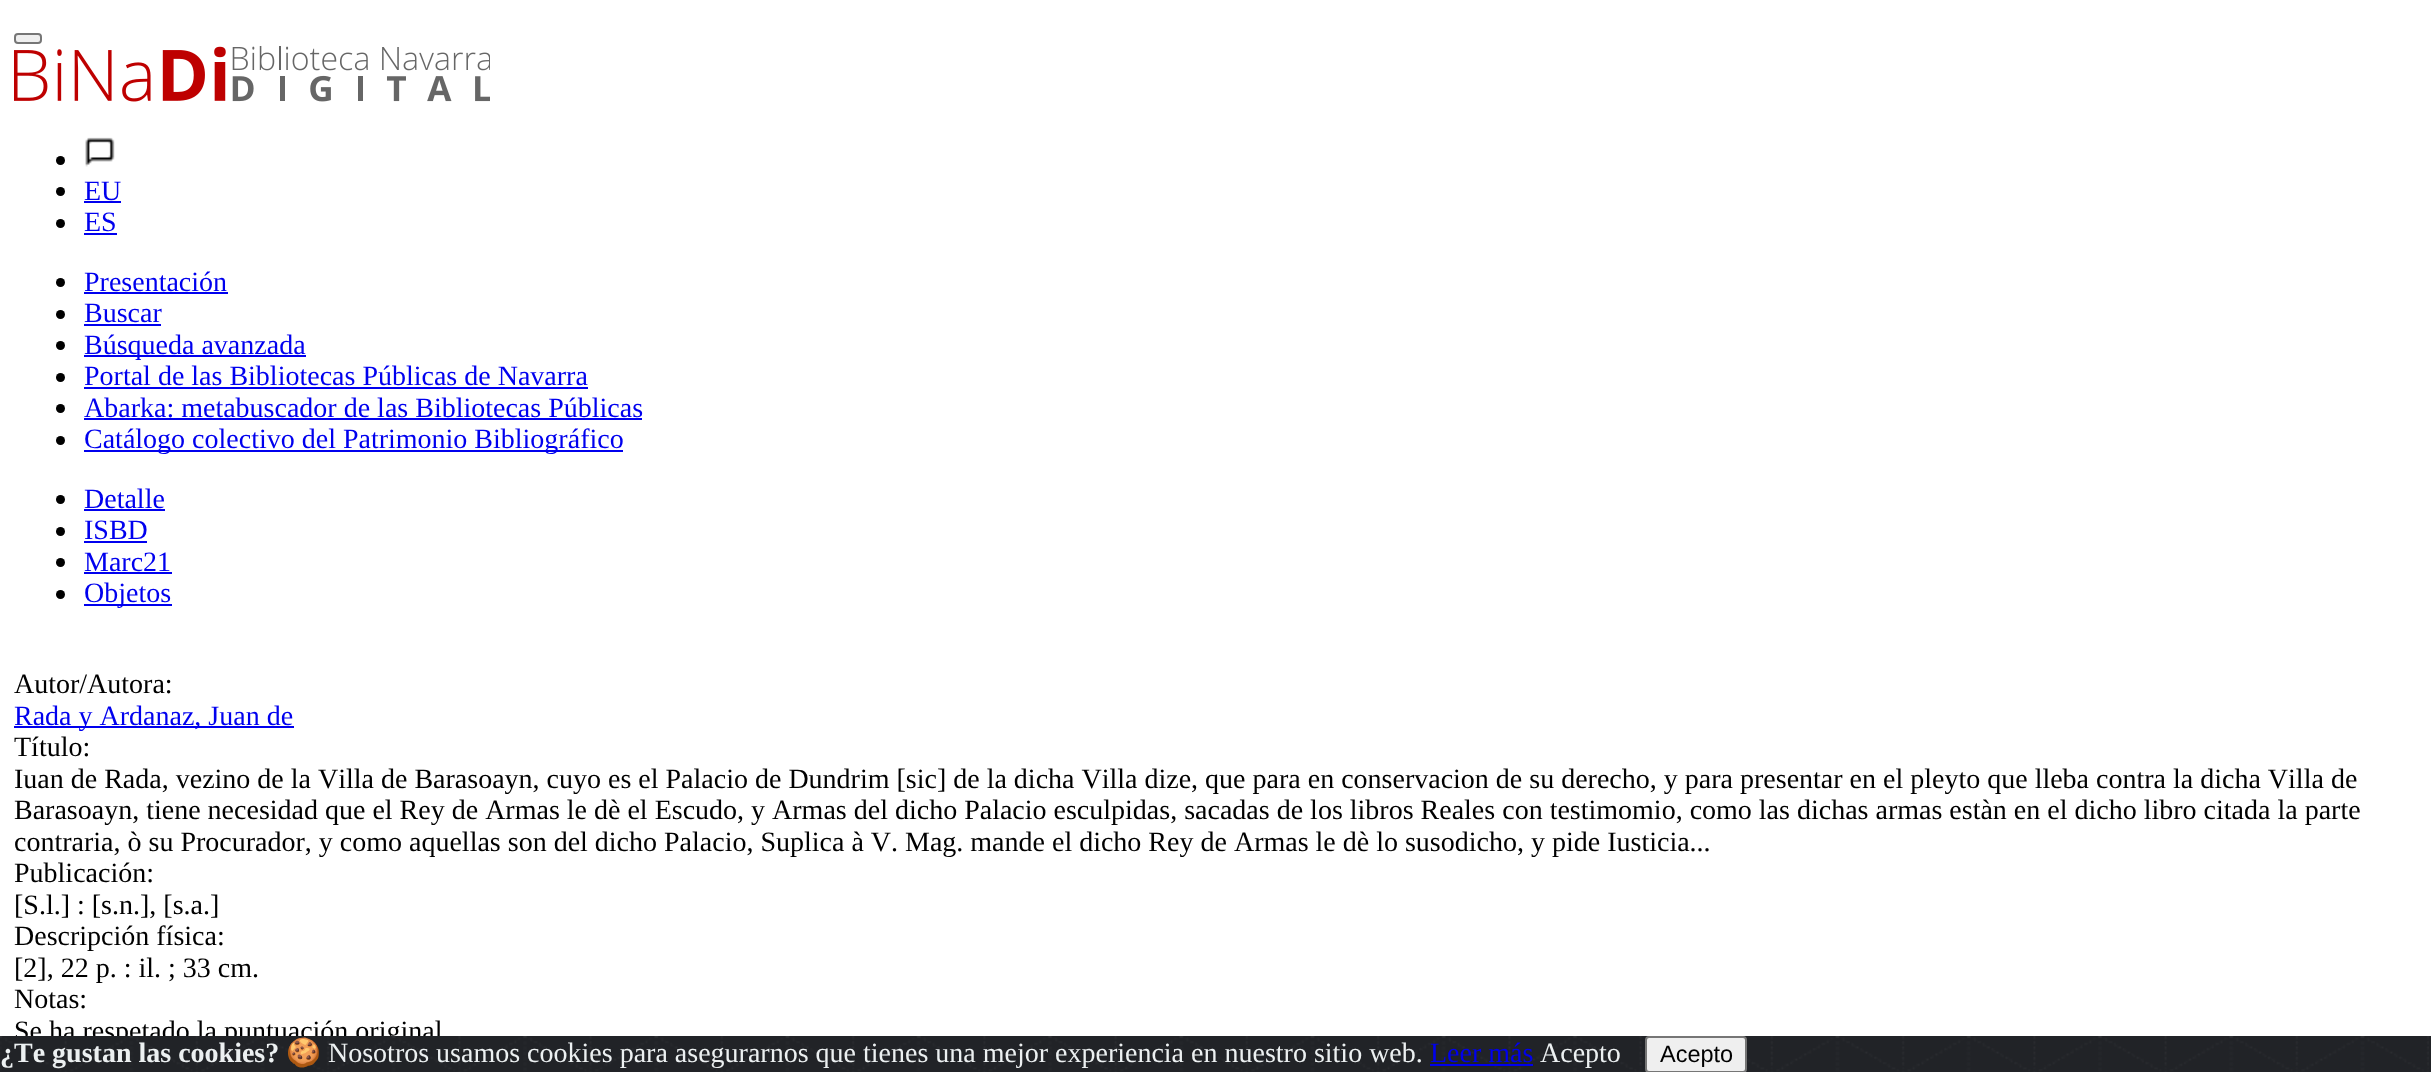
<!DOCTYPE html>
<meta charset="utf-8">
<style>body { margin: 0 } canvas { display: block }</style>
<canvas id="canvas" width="2431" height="1072"></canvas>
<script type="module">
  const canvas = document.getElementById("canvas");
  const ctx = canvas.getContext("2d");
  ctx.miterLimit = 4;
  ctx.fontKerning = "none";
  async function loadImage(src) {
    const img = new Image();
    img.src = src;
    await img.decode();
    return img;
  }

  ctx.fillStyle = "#ffffff";
  ctx.fillRect(0, 0, 2431, 1072);
  ctx.fillStyle = "#efefef";
  ctx.beginPath();
  ctx.roundRect(15, 34, 26, 9, 3);
  ctx.fill();
  ctx.strokeStyle = "#767676";
  ctx.lineWidth = 2;
  ctx.stroke();
  ctx.drawImage(await loadImage("img1.png"), 14, 46, 476, 56);
  ctx.fillStyle = "#000000";
  ctx.beginPath();
  ctx.arc(60.5, 160.5, 4.5, 0, Math.PI * 2);
  ctx.fill();
  ctx.drawImage(await loadImage("img2.png"), 85, 137, 30, 30);
  ctx.beginPath();
  ctx.arc(60.5, 191.5, 4.5, 0, Math.PI * 2);
  ctx.fill();
  ctx.font = "28px Liberation Serif";
  ctx.fillStyle = "#0000ee";
  ctx.fillText("EU", 84, 200);
  ctx.fillRect(84, 201, 37, 2);
  ctx.fillStyle = "#000000";
  ctx.beginPath();
  ctx.arc(60.5, 223.5, 4.5, 0, Math.PI * 2);
  ctx.fill();
  ctx.fillStyle = "#0000ee";
  ctx.fillText("ES", 84, 231);
  ctx.fillRect(84, 233, 33, 2);
  ctx.fillStyle = "#000000";
  ctx.beginPath();
  ctx.arc(60.5, 282.5, 4.5, 0, Math.PI * 2);
  ctx.fill();
  ctx.fillStyle = "#0000ee";
  ctx.fillText("Presentación", 84, 291);
  ctx.fillRect(84, 292, 144, 2);
  ctx.fillStyle = "#000000";
  ctx.beginPath();
  ctx.arc(60.5, 314.5, 4.5, 0, Math.PI * 2);
  ctx.fill();
  ctx.fillStyle = "#0000ee";
  ctx.fillText("Buscar", 84, 322);
  ctx.fillRect(84, 324, 77, 2);
  ctx.fillStyle = "#000000";
  ctx.beginPath();
  ctx.arc(60.5, 345.5, 4.5, 0, Math.PI * 2);
  ctx.fill();
  ctx.fillStyle = "#0000ee";
  ctx.fillRect(84, 355, 222, 2);
  ctx.fillText("Búsqueda avanzada", 84, 354);
  ctx.fillStyle = "#000000";
  ctx.beginPath();
  ctx.arc(60.5, 377.5, 4.5, 0, Math.PI * 2);
  ctx.fill();
  ctx.fillStyle = "#0000ee";
  ctx.fillText("Portal de las Bibliotecas Públicas de Navarra", 84, 385);
  ctx.fillRect(84, 387, 504, 2);
  ctx.fillStyle = "#000000";
  ctx.beginPath();
  ctx.arc(60.5, 408.5, 4.5, 0, Math.PI * 2);
  ctx.fill();
  ctx.fillStyle = "#0000ee";
  ctx.fillText("Abarka: metabuscador de las Bibliotecas Públicas", 84, 417);
  ctx.fillRect(84, 418, 558, 2);
  ctx.fillStyle = "#000000";
  ctx.beginPath();
  ctx.arc(60.5, 440.5, 4.5, 0, Math.PI * 2);
  ctx.fill();
  ctx.fillStyle = "#0000ee";
  ctx.fillRect(84, 450, 539, 2);
  ctx.fillText("Catálogo colectivo del Patrimonio Bibliográfico", 84, 448);
  ctx.fillStyle = "#000000";
  ctx.beginPath();
  ctx.arc(60.5, 499.5, 4.5, 0, Math.PI * 2);
  ctx.fill();
  ctx.fillStyle = "#0000ee";
  ctx.fillText("Detalle", 84, 508);
  ctx.fillRect(84, 509, 81, 2);
  ctx.fillStyle = "#000000";
  ctx.beginPath();
  ctx.arc(60.5, 531.5, 4.5, 0, Math.PI * 2);
  ctx.fill();
  ctx.fillStyle = "#0000ee";
  ctx.fillText("ISBD", 84, 539);
  ctx.fillRect(84, 541, 63, 2);
  ctx.fillStyle = "#000000";
  ctx.beginPath();
  ctx.arc(60.5, 562.5, 4.5, 0, Math.PI * 2);
  ctx.fill();
  ctx.fillStyle = "#0000ee";
  ctx.fillText("Marc21", 84, 571);
  ctx.fillRect(84, 572, 88, 2);
  ctx.fillStyle = "#000000";
  ctx.beginPath();
  ctx.arc(60.5, 594.5, 4.5, 0, Math.PI * 2);
  ctx.fill();
  ctx.fillStyle = "#0000ee";
  ctx.fillRect(84, 604, 88, 2);
  ctx.fillText("Objetos", 84, 602);
  ctx.fillStyle = "#000000";
  ctx.fillText("Autor/Autora:", 14, 693);
  ctx.fillStyle = "#0000ee";
  ctx.fillRect(14, 726, 280, 2);
  ctx.fillText("Rada y Ardanaz, Juan de", 14, 725);
  ctx.fillStyle = "#000000";
  ctx.fillText("Título:", 14, 756);
  ctx.fillText("Iuan de Rada, vezino de la Villa de Barasoayn, cuyo es el Palacio de Dundrim [sic] de la dicha Villa dize, que para en conservacion de su derecho, y para presentar en el pleyto que lleba contra la dicha Villa", 14, 788);
  ctx.fillText("de", 2331, 788);
  ctx.fillText("Barasoayn, tiene necesidad que el Rey de Armas le dè el Escudo, y Armas del dicho Palacio esculpidas, sacadas de los libros Reales con testimomio, como las dichas armas estàn en el dicho libro citada la parte", 14, 819);
  ctx.fillText("contraria, ò su Procurador, y como aquellas son del dicho Palacio, Suplica à V.", 14, 851);
  ctx.fillText("Mag. mande el dicho Rey de Armas le dè lo susodicho, y pide Iusticia...", 905, 851);
  ctx.fillText("Publicación:", 14, 882);
  ctx.fillText("[S.l.] : [s.n.], [s.a.]", 14, 914);
  ctx.fillText("Descripción física:", 14, 945);
  ctx.fillText("[2], 22 p. : il. ; 33 cm.", 14, 977);
  ctx.fillText("Notas:", 14, 1008);
  ctx.fillText("Se ha respetado la puntuación original", 14, 1040);
  ctx.fillStyle = "#212327";
  ctx.fillRect(2429, 1036, 2, 36);
  ctx.drawImage(await loadImage("img3.png"), 0, 1036, 2429, 36);
  ctx.font = "bold 28px Liberation Serif";
  ctx.fillStyle = "#ecf0f1";
  ctx.fillText("¿Te gustan las cookies?", 0, 1062);
  ctx.font = "28px Noto Color Emoji";
  ctx.fillText("🍪", 286, 1062);
  ctx.font = "28px Liberation Serif";
  ctx.fillText("Nosotros usamos cookies para asegurarnos que tienes una mejor experiencia en nuestro sitio web.", 328, 1062);
  ctx.fillStyle = "#0000ee";
  ctx.fillText("Leer más", 1430, 1062);
  ctx.fillRect(1430, 1064, 103, 2);
  ctx.fillStyle = "#ecf0f1";
  ctx.fillText("Acepto", 1540, 1062);
  ctx.fillStyle = "#efefef";
  ctx.beginPath();
  ctx.roundRect(1646, 1037, 100, 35, 3);
  ctx.fill();
  ctx.stroke();
  ctx.font = "23.5px Liberation Sans";
  ctx.fillStyle = "#000000";
  ctx.fillText("Acepto", 1660, 1062);
</script>
